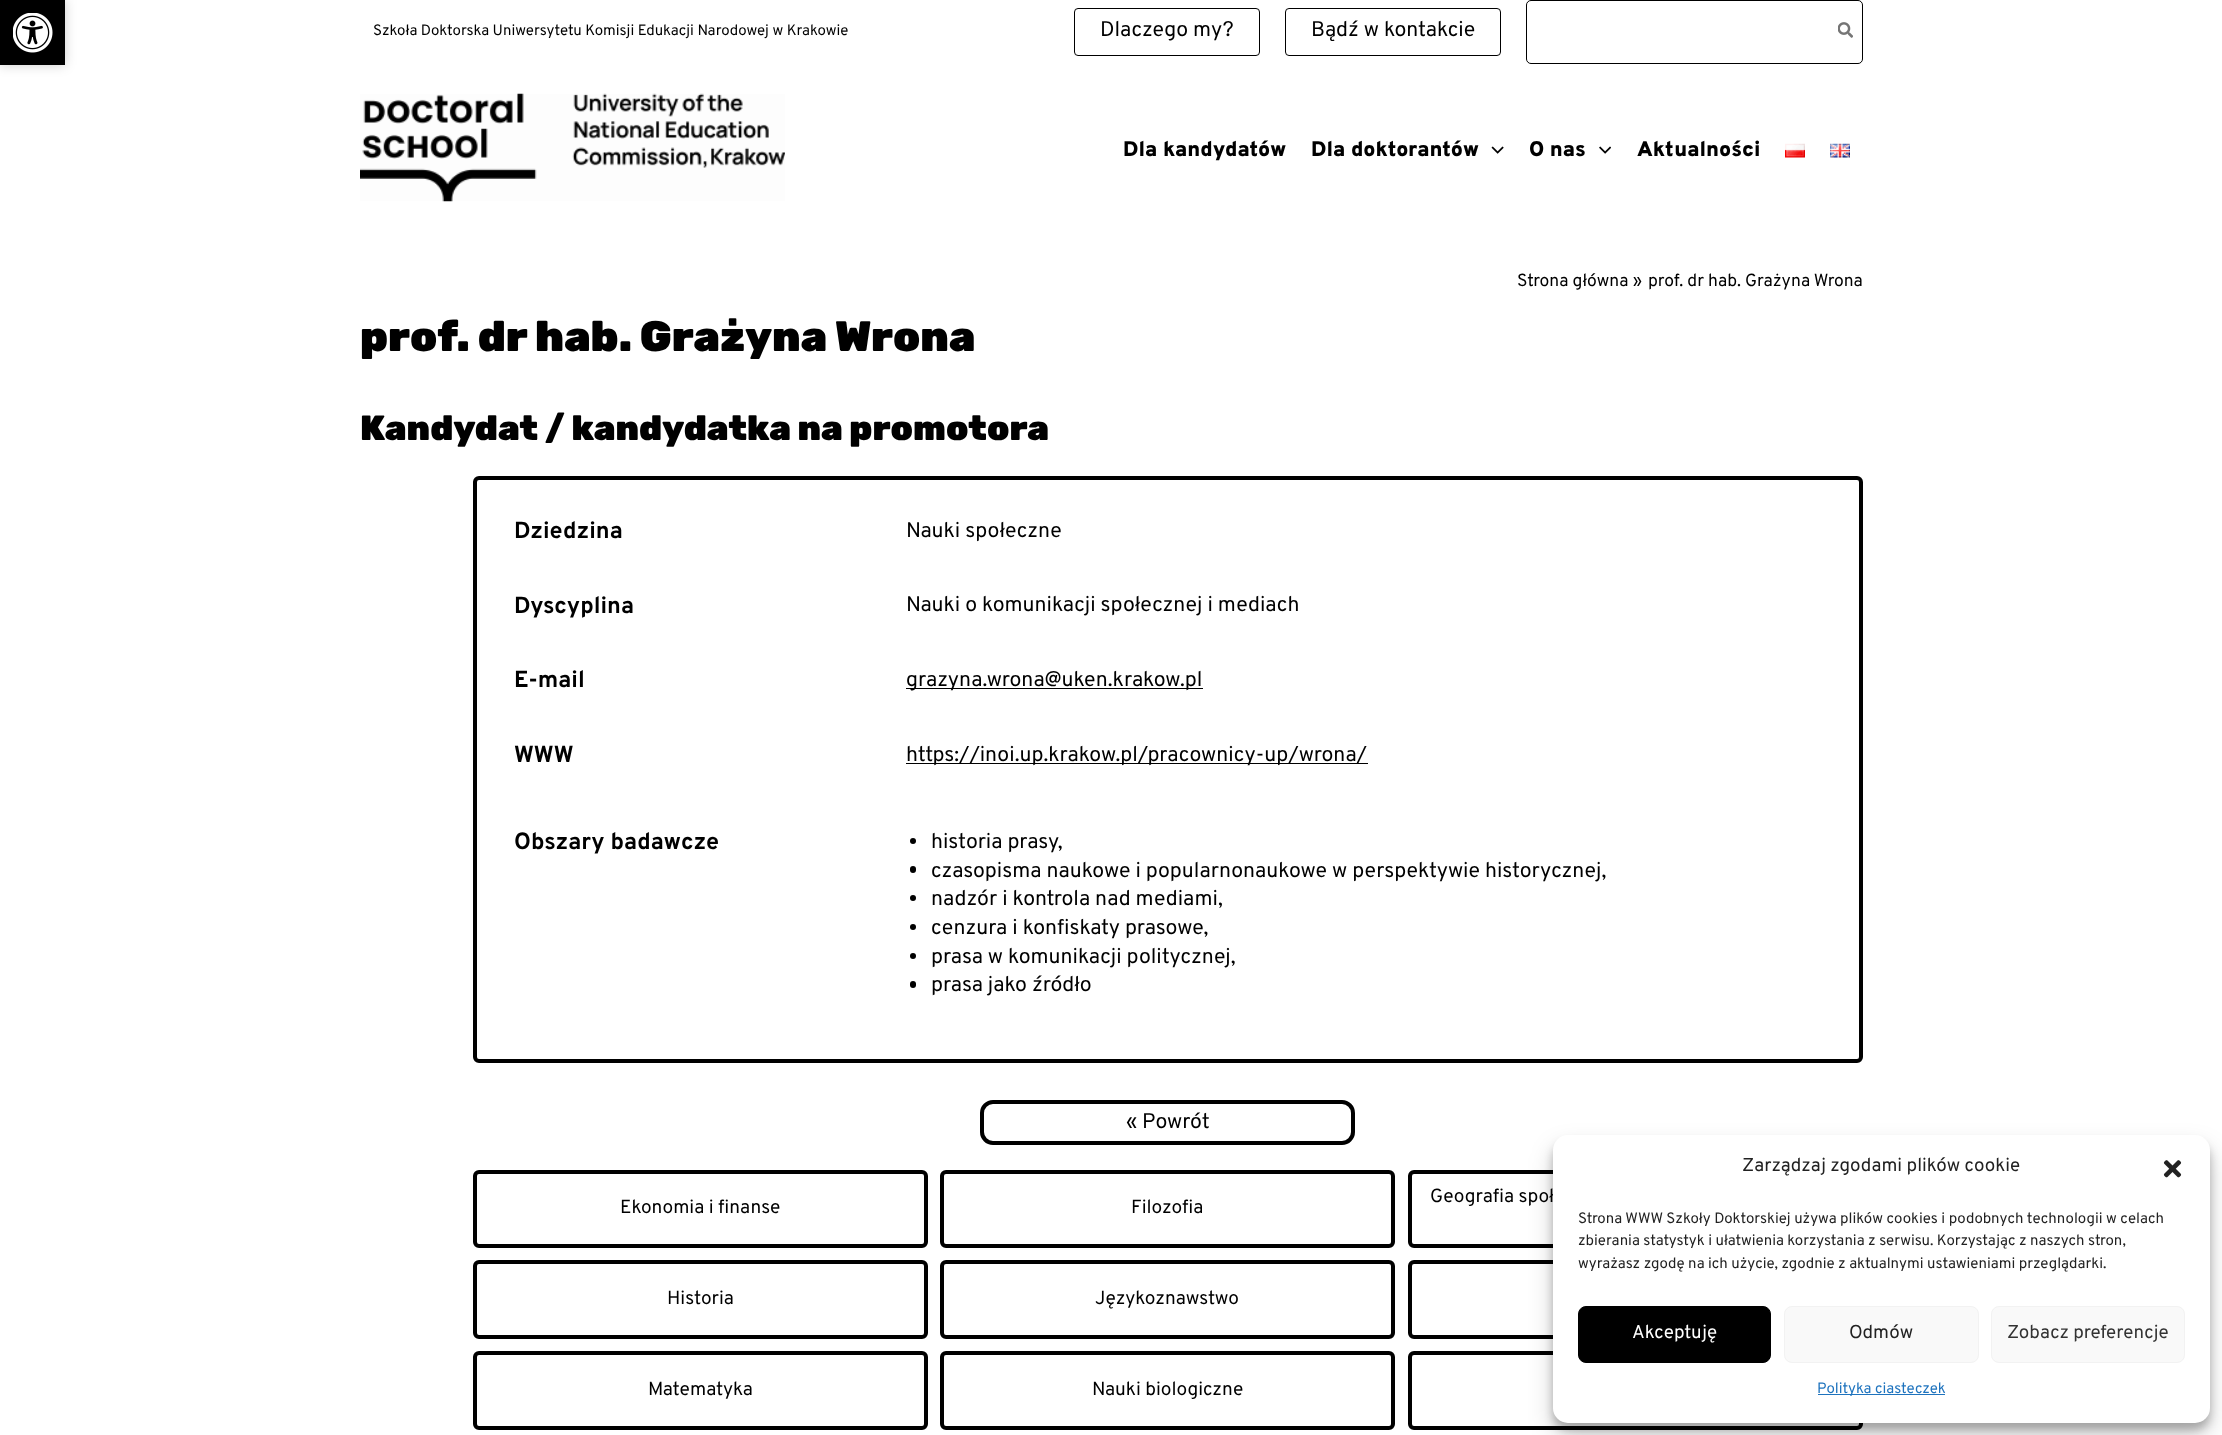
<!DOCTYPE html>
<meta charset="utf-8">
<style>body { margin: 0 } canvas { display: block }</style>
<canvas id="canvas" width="2222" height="1435"></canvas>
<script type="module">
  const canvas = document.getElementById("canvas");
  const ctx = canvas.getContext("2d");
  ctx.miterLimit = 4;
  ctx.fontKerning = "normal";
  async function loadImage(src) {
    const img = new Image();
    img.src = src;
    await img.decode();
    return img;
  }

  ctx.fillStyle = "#ffffff";
  ctx.fillRect(0, 0, 2222, 1435);
  ctx.fillStyle = "rgba(0, 0, 0, 0.2)";
  ctx.filter = "blur(6px)";
  ctx.beginPath();
  ctx.rect(0, 0, 65, 65);
  ctx.fill();
  ctx.filter = "none";
  ctx.fillStyle = "#000000";
  ctx.fillRect(0, 0, 65, 65);
  ctx.drawImage(await loadImage("img1.png"), 13, 13, 40, 40);
  ctx.font = "15px Overpass";
  ctx.fillText("Szkoła Doktorska Uniwersytetu Komisji Edukacji Narodowej w Krakowie", 373, 35);
  ctx.beginPath();
  ctx.roundRect(1074.5, 8.5, 185, 47, 3.5);
  ctx.strokeStyle = "#000000";
  ctx.stroke();
  ctx.font = "21.25px Overpass";
  ctx.fillText("Dlaczego my?", 1100, 36);
  ctx.beginPath();
  ctx.roundRect(1285.5, 8.5, 215, 47, 3.5);
  ctx.stroke();
  ctx.fillText("Bądź w kontakcie", 1311, 36);
  ctx.beginPath();
  ctx.roundRect(1526.5, 0.5, 336, 63, 4.5);
  ctx.stroke();
  ctx.drawImage(await loadImage("img2.png"), 1838, 22, 15, 16);
  ctx.drawImage(await loadImage("img3.png"), 360, 93, 425, 109);
  ctx.font = "900 21.25px Overpass";
  ctx.fillText("Dla kandydatów", 1123, 156);
  ctx.fillText("Dla doktorantów", 1311, 156);
  ctx.drawImage(await loadImage("img4.png"), 1491, 146, 13, 8);
  ctx.fillText("O nas", 1529, 156);
  ctx.drawImage(await loadImage("img5.png"), 1599, 146, 12, 8);
  ctx.fillText("Aktualności", 1637, 156);
  ctx.drawImage(await loadImage("img6.png"), 1785, 143, 20, 15);
  ctx.drawImage(await loadImage("img7.png"), 1830, 143, 20, 15);
  ctx.font = "17.5px Overpass";
  ctx.fillText("Strona główna", 1517, 286);
  ctx.fillText("»", 1633, 286);
  ctx.fillText("prof. dr hab. Grażyna Wrona", 1648, 286);
  ctx.font = "900 42.5px Rubik";
  ctx.fillText("prof. dr hab. Grażyna Wrona", 360, 351);
  ctx.font = "900 35px Rubik";
  ctx.fillText("Kandydat / kandydatka na promotora", 360, 440);
  ctx.beginPath();
  ctx.roundRect(475, 478, 1386, 583, 4);
  ctx.lineWidth = 4;
  ctx.stroke();
  ctx.font = "bold 23.4px Overpass";
  ctx.fillText("Dziedzina", 514, 538);
  ctx.font = "21.25px Overpass";
  ctx.fillText("Nauki społeczne", 906, 537);
  ctx.font = "bold 23.4px Overpass";
  ctx.fillText("Dyscyplina", 514, 613);
  ctx.font = "21.25px Overpass";
  ctx.fillText("Nauki o komunikacji społecznej i mediach", 906, 611);
  ctx.font = "bold 23.4px Overpass";
  ctx.fillText("E-mail", 514, 687);
  ctx.fillRect(906, 688, 297, 1);
  ctx.font = "21.25px Overpass";
  ctx.fillText("grazyna.wrona@uken.krakow.pl", 906, 686);
  ctx.font = "bold 23.4px Overpass";
  ctx.fillText("WWW", 514, 762);
  ctx.fillRect(906, 763, 462, 1);
  ctx.font = "21.25px Overpass";
  ctx.fillText("https://inoi.up.krakow.pl/pracownicy-up/wrona/", 906, 761);
  ctx.font = "bold 23.4px Overpass";
  ctx.fillText("Obszary badawcze", 514, 849);
  ctx.beginPath();
  ctx.arc(913, 841, 3, 0, Math.PI * 2);
  ctx.fill();
  ctx.font = "21.25px Overpass";
  ctx.fillText("historia prasy,", 931, 848);
  ctx.beginPath();
  ctx.roundRect(910, 866, 6, 7, 3);
  ctx.fill();
  ctx.fillText("czasopisma naukowe i popularnonaukowe w perspektywie historycznej,", 931, 877);
  ctx.beginPath();
  ctx.arc(913, 898, 3, 0, Math.PI * 2);
  ctx.fill();
  ctx.fillText("nadzór i kontrola nad mediami,", 931, 905);
  ctx.beginPath();
  ctx.arc(913, 927, 3, 0, Math.PI * 2);
  ctx.fill();
  ctx.fillText("cenzura i konfiskaty prasowe,", 931, 934);
  ctx.beginPath();
  ctx.arc(913, 956, 3, 0, Math.PI * 2);
  ctx.fill();
  ctx.fillText("prasa w komunikacji politycznej,", 931, 963);
  ctx.beginPath();
  ctx.roundRect(910, 981, 6, 7, 3);
  ctx.fill();
  ctx.fillText("prasa jako źródło", 931, 991);
  ctx.beginPath();
  ctx.roundRect(982, 1102, 371, 41, 11);
  ctx.stroke();
  ctx.fillText("« Powrót", 1126, 1128);
  ctx.beginPath();
  ctx.roundRect(475, 1172, 451, 74, 4);
  ctx.stroke();
  ctx.font = "19.1px Overpass";
  ctx.fillText("Ekonomia i finanse", 620, 1213);
  ctx.beginPath();
  ctx.roundRect(942, 1172, 451, 74, 4);
  ctx.stroke();
  ctx.fillText("Filozofia", 1131, 1213);
  ctx.beginPath();
  ctx.roundRect(1410, 1172, 451, 74, 4);
  ctx.stroke();
  ctx.fillText("Geografia społ", 1430, 1202);
  ctx.beginPath();
  ctx.roundRect(475, 1262, 451, 75, 4);
  ctx.stroke();
  ctx.fillText("Historia", 667, 1304);
  ctx.beginPath();
  ctx.roundRect(942, 1262, 451, 75, 4);
  ctx.stroke();
  ctx.fillText("Językoznawstwo", 1095, 1304);
  ctx.beginPath();
  ctx.roundRect(1410, 1262, 451, 75, 4);
  ctx.stroke();
  ctx.beginPath();
  ctx.roundRect(475, 1353, 451, 75, 4);
  ctx.stroke();
  ctx.fillText("Matematyka", 648, 1395);
  ctx.beginPath();
  ctx.roundRect(942, 1353, 451, 75, 4);
  ctx.stroke();
  ctx.fillText("Nauki biologiczne", 1092, 1395);
  ctx.beginPath();
  ctx.roundRect(1410, 1353, 451, 75, 4);
  ctx.stroke();
  ctx.fillStyle = "rgba(0, 0, 0, 0.23)";
  ctx.filter = "blur(4px)";
  ctx.beginPath();
  ctx.roundRect(1553, 1143, 657, 287, 15);
  ctx.fill();
  ctx.filter = "none";
  ctx.fillStyle = "rgba(0, 0, 0, 0.19)";
  ctx.filter = "blur(12.5px)";
  ctx.beginPath();
  ctx.roundRect(1553, 1148, 657, 287, 15);
  ctx.fill();
  ctx.filter = "none";
  ctx.fillStyle = "#ffffff";
  ctx.beginPath();
  ctx.roundRect(1553, 1135, 657, 288, 15);
  ctx.fill();
  ctx.font = "18.75px Overpass";
  ctx.fillStyle = "#222222";
  ctx.fillText("Zarządzaj zgodami plików cookie", 1742, 1171);
  ctx.drawImage(await loadImage("img8.png"), 2163, 1160, 19, 18);
  ctx.font = "15px Overpass";
  ctx.fillText("Strona WWW Szkoły Doktorskiej używa plików cookies i podobnych technologii w celach", 1578, 1223);
  ctx.fillText("zbierania statystyk i ułatwienia korzystania z serwisu. Korzystając z naszych stron,", 1578, 1245);
  ctx.fillText("wyrażasz zgodę na ich użycie, zgodnie z aktualnymi ustawieniami przeglądarki.", 1578, 1268);
  ctx.fillStyle = "#000000";
  ctx.beginPath();
  ctx.roundRect(1578.5, 1306.5, 192, 56, 7.5);
  ctx.fill();
  ctx.lineWidth = 1;
  ctx.stroke();
  ctx.font = "18.75px Overpass";
  ctx.fillStyle = "#ffffff";
  ctx.fillText("Akceptuję", 1632, 1338);
  ctx.fillStyle = "#f9f9f9";
  ctx.beginPath();
  ctx.roundRect(1784.5, 1306.5, 194, 56, 7.5);
  ctx.fill();
  ctx.strokeStyle = "#f2f2f2";
  ctx.stroke();
  ctx.fillStyle = "#222222";
  ctx.fillText("Odmów", 1849, 1338);
  ctx.fillStyle = "#f9f9f9";
  ctx.beginPath();
  ctx.roundRect(1991.5, 1306.5, 193, 56, 7.5);
  ctx.fill();
  ctx.stroke();
  ctx.fillStyle = "#333333";
  ctx.fillText("Zobacz preferencje", 2007, 1338);
  ctx.fillStyle = "#1e73be";
  ctx.fillRect(1818, 1394, 127, 1);
  ctx.font = "15px Overpass";
  ctx.fillText("Polityka ciasteczek", 1817, 1393);
</script>
